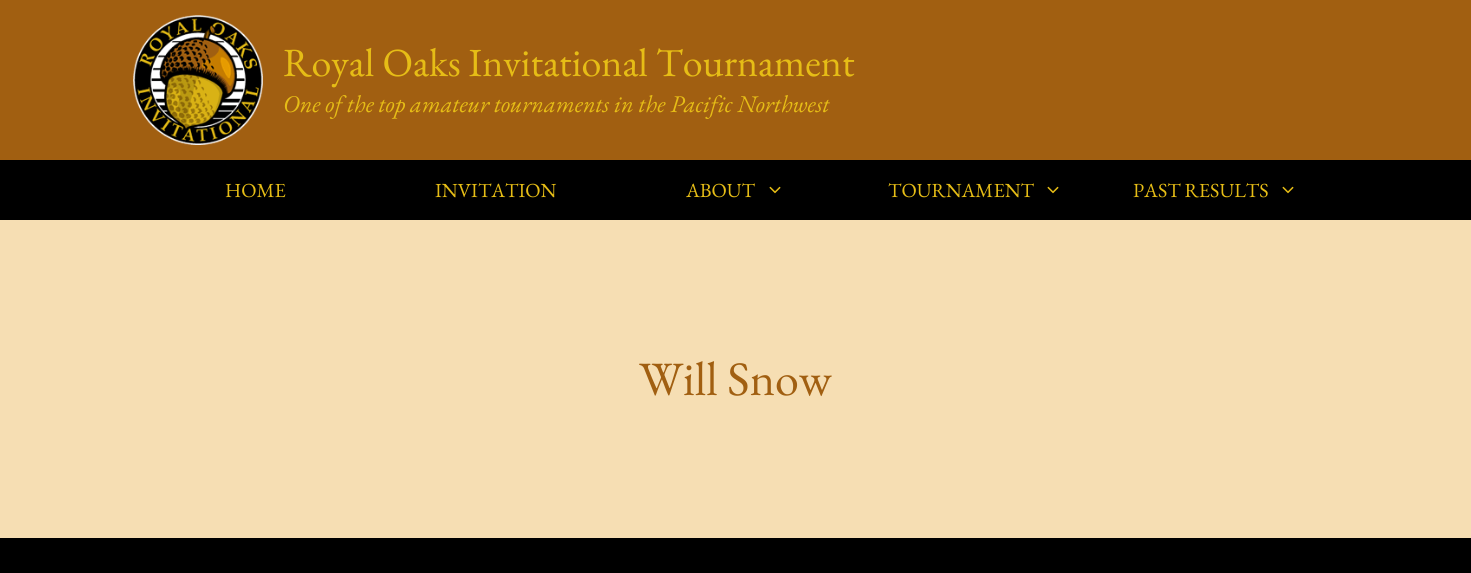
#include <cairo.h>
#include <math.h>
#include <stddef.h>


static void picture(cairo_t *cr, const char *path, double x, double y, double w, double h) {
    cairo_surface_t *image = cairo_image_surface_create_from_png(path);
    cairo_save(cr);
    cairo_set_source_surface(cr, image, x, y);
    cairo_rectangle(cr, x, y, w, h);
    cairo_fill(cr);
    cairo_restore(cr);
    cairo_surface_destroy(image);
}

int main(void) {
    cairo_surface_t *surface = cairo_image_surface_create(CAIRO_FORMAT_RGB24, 1471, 573);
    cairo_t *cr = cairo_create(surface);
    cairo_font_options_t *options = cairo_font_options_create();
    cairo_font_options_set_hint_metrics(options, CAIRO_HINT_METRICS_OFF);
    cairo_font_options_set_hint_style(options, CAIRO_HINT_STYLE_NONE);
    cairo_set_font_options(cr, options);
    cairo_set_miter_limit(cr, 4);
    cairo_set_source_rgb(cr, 0.961, 0.871, 0.702);
    cairo_paint(cr);
    cairo_set_source_rgb(cr, 0.631, 0.373, 0.067);
    cairo_rectangle(cr, 0, 0, 1471, 160);
    cairo_fill(cr);
    picture(cr, "img1.png", 133, 15, 130, 130);
    cairo_select_font_face(cr, "EB Garamond", CAIRO_FONT_SLANT_NORMAL, CAIRO_FONT_WEIGHT_NORMAL);
    cairo_set_font_size(cr, 40);
    cairo_set_source_rgb(cr, 0.902, 0.741, 0.086);
    cairo_move_to(cr, 283, 76);
    cairo_show_text(cr, "Royal Oaks Invitational Tournament");
    cairo_select_font_face(cr, "EB Garamond", CAIRO_FONT_SLANT_ITALIC, CAIRO_FONT_WEIGHT_NORMAL);
    cairo_set_font_size(cr, 24);
    cairo_move_to(cr, 283, 112);
    cairo_show_text(cr, "One of the top amateur tournaments in the Pacific Northwest");
    cairo_set_source_rgb(cr, 0, 0, 0);
    cairo_rectangle(cr, 0, 160, 1471, 60);
    cairo_fill(cr);
    cairo_select_font_face(cr, "EB Garamond", CAIRO_FONT_SLANT_NORMAL, CAIRO_FONT_WEIGHT_NORMAL);
    cairo_set_font_size(cr, 20);
    cairo_set_source_rgb(cr, 0.902, 0.741, 0.086);
    cairo_move_to(cr, 225, 197);
    cairo_show_text(cr, "HOME");
    cairo_move_to(cr, 435, 197);
    cairo_show_text(cr, "INVITATION");
    cairo_move_to(cr, 686, 197);
    cairo_show_text(cr, "ABOUT");
    picture(cr, "img2.png", 769, 186, 12, 8);
    cairo_move_to(cr, 888, 197);
    cairo_show_text(cr, "TOURNAMENT");
    picture(cr, "img2.png", 1047, 186, 12, 8);
    cairo_move_to(cr, 1133, 197);
    cairo_show_text(cr, "PAST RESULTS");
    picture(cr, "img2.png", 1282, 186, 12, 8);
    cairo_set_font_size(cr, 48);
    cairo_set_source_rgb(cr, 0.631, 0.373, 0.067);
    cairo_move_to(cr, 639, 395);
    cairo_show_text(cr, "Will Snow");
    cairo_set_source_rgb(cr, 0, 0, 0);
    cairo_rectangle(cr, 0, 538, 1471, 35);
    cairo_fill(cr);
    cairo_surface_write_to_png(surface, "page.png");
    cairo_font_options_destroy(options);
    cairo_destroy(cr);
    cairo_surface_destroy(surface);
    return 0;
}
